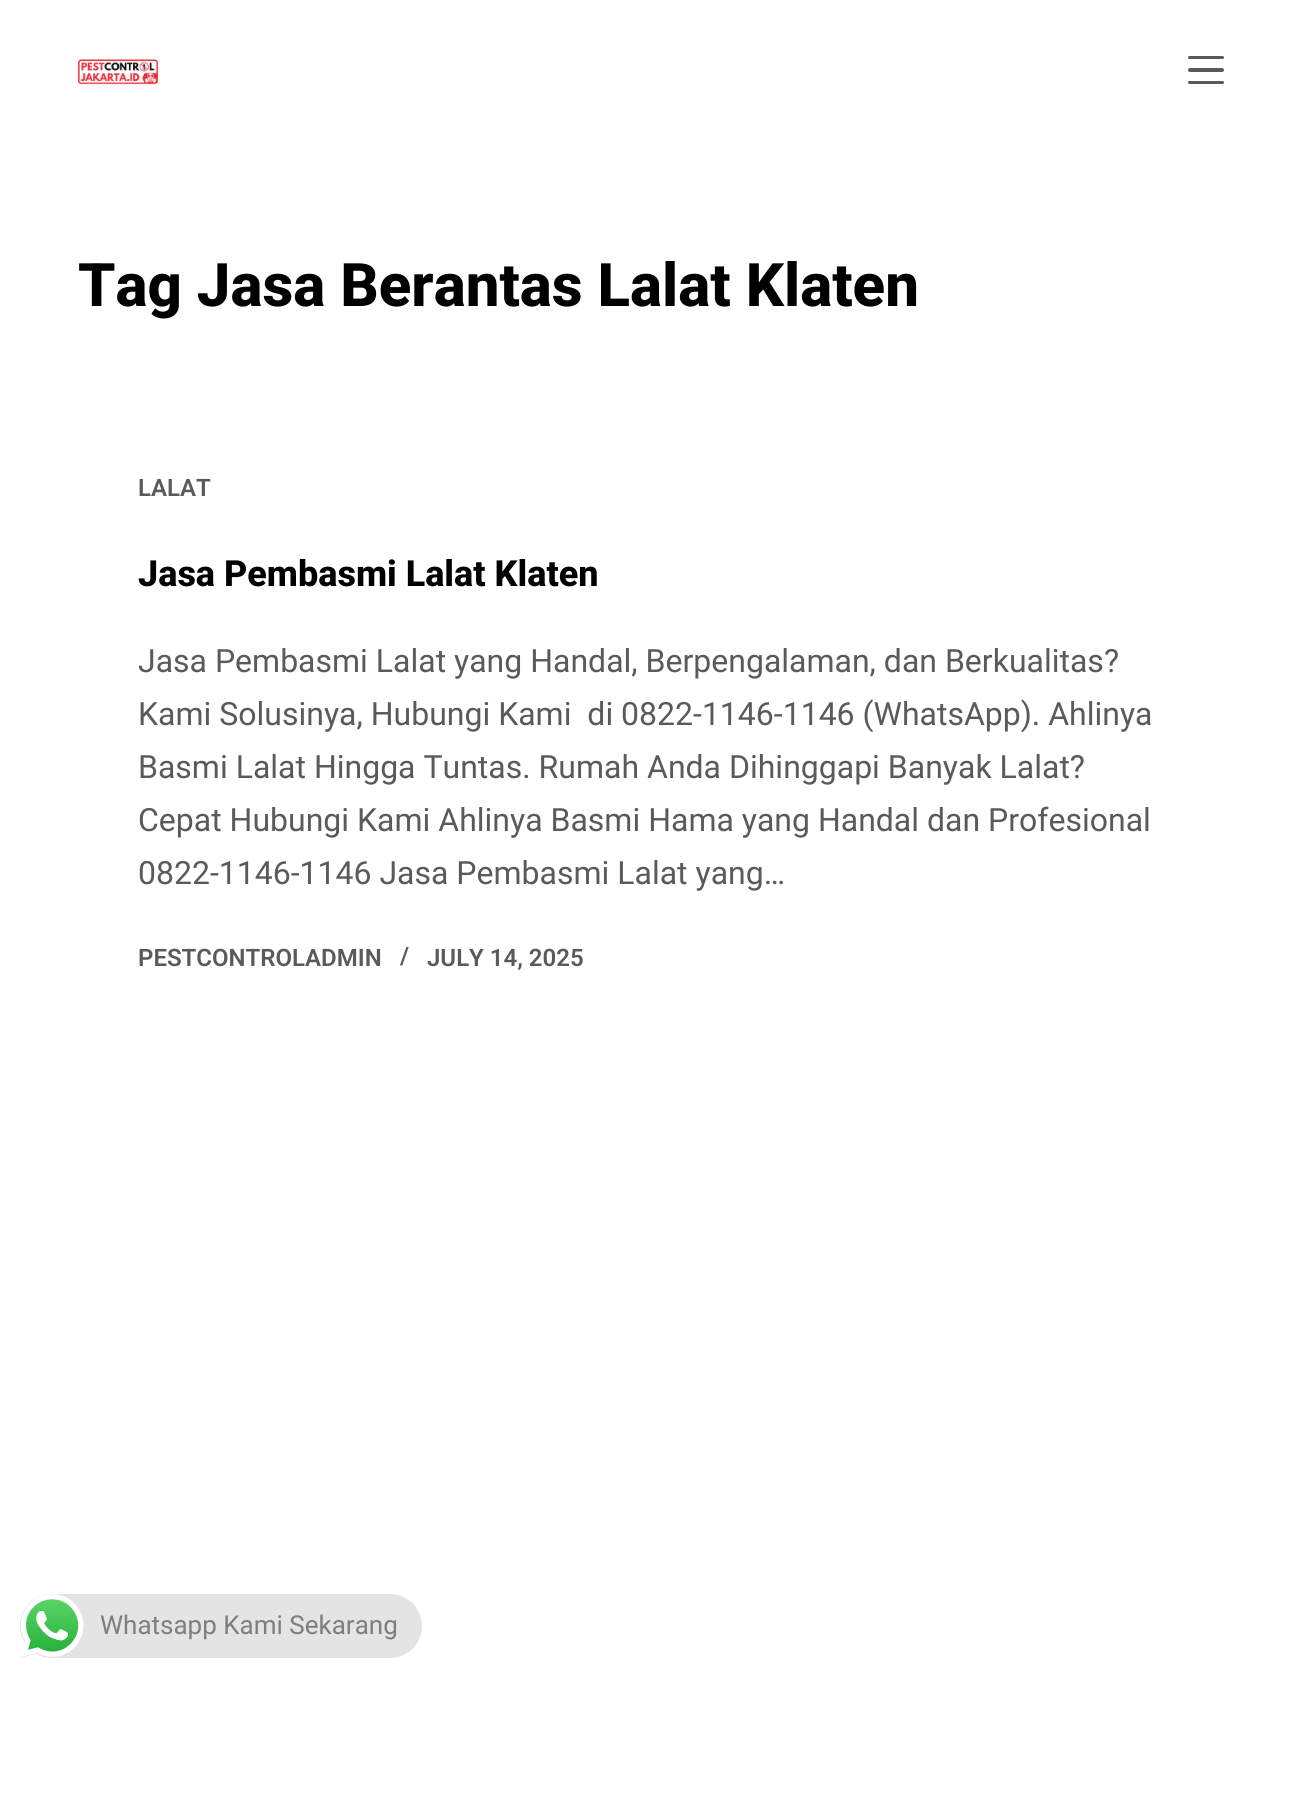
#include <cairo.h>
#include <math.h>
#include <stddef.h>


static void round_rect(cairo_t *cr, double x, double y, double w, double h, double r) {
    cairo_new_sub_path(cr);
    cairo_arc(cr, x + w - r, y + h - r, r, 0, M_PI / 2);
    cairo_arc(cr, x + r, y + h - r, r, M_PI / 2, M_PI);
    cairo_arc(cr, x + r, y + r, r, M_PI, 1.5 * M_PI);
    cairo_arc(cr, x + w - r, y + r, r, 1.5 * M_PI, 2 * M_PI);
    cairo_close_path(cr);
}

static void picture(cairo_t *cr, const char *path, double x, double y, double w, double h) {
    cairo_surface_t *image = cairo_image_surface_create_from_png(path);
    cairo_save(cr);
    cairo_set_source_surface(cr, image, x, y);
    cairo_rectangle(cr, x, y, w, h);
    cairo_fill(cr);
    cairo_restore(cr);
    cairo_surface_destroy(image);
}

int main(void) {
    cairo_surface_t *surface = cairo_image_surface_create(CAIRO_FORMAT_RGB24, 1302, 1801);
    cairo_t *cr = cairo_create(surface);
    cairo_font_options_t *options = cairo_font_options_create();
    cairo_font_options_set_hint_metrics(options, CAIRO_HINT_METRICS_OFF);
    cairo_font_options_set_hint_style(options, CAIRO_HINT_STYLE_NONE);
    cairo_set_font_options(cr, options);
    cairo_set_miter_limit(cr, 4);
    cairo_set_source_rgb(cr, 1, 1, 1);
    cairo_paint(cr);
    picture(cr, "img1.png", 78, 59, 80, 26);
    cairo_set_source_rgb(cr, 0.353, 0.353, 0.353);
    round_rect(cr, 1188, 56, 36, 3, 1.5);
    cairo_fill(cr);
    round_rect(cr, 1188, 68, 36, 4, 2);
    cairo_fill(cr);
    round_rect(cr, 1188, 81, 36, 3, 1.5);
    cairo_fill(cr);
    cairo_select_font_face(cr, "Roboto ExtraBold", CAIRO_FONT_SLANT_NORMAL, CAIRO_FONT_WEIGHT_NORMAL);
    cairo_set_font_size(cr, 60);
    cairo_set_source_rgb(cr, 0, 0, 0);
    cairo_move_to(cr, 78, 306);
    cairo_show_text(cr, "Tag Jasa Berantas Lalat Klaten");
    cairo_select_font_face(cr, "Roboto SemiBold", CAIRO_FONT_SLANT_NORMAL, CAIRO_FONT_WEIGHT_NORMAL);
    cairo_set_font_size(cr, 24);
    cairo_set_source_rgb(cr, 0.353, 0.353, 0.353);
    cairo_move_to(cr, 138, 496);
    cairo_show_text(cr, "LALAT");
    cairo_select_font_face(cr, "Roboto ExtraBold", CAIRO_FONT_SLANT_NORMAL, CAIRO_FONT_WEIGHT_NORMAL);
    cairo_set_font_size(cr, 36);
    cairo_set_source_rgb(cr, 0, 0, 0);
    cairo_move_to(cr, 138, 586);
    cairo_show_text(cr, "Jasa Pembasmi Lalat Klaten");
    cairo_select_font_face(cr, "Roboto", CAIRO_FONT_SLANT_NORMAL, CAIRO_FONT_WEIGHT_NORMAL);
    cairo_set_font_size(cr, 32);
    cairo_set_source_rgb(cr, 0.353, 0.353, 0.353);
    cairo_move_to(cr, 138, 672);
    cairo_show_text(cr, "Jasa Pembasmi Lalat yang Handal, Berpengalaman, dan Berkualitas?");
    cairo_move_to(cr, 138, 725);
    cairo_show_text(cr, "Kami Solusinya, Hubungi Kami  di 0822-1146-1146 (WhatsApp). Ahlinya");
    cairo_move_to(cr, 138, 778);
    cairo_show_text(cr, "Basmi Lalat Hingga Tuntas. Rumah Anda Dihinggapi Banyak Lalat?");
    cairo_move_to(cr, 138, 831);
    cairo_show_text(cr, "Cepat Hubungi Kami Ahlinya Basmi Hama yang Handal dan Profesional");
    cairo_move_to(cr, 138, 884);
    cairo_show_text(cr, "0822-1146-1146 Jasa Pembasmi Lalat yang…");
    cairo_select_font_face(cr, "Roboto SemiBold", CAIRO_FONT_SLANT_NORMAL, CAIRO_FONT_WEIGHT_NORMAL);
    cairo_set_font_size(cr, 24);
    cairo_move_to(cr, 138, 966);
    cairo_show_text(cr, "PESTCONTROLADMIN");
    cairo_move_to(cr, 400, 964);
    cairo_show_text(cr, "/");
    cairo_move_to(cr, 427, 966);
    cairo_show_text(cr, "JULY 14, 2025");
    cairo_set_source_rgb(cr, 0.894, 0.894, 0.894);
    round_rect(cr, 20, 1594, 402, 64, 32);
    cairo_fill(cr);
    picture(cr, "img2.png", 20, 1594, 64, 64);
    cairo_select_font_face(cr, "Roboto", CAIRO_FONT_SLANT_NORMAL, CAIRO_FONT_WEIGHT_NORMAL);
    cairo_set_font_size(cr, 26);
    cairo_set_source_rgb(cr, 0.498, 0.49, 0.49);
    cairo_move_to(cr, 100, 1634);
    cairo_show_text(cr, "Whatsapp Kami Sekarang");
    cairo_surface_write_to_png(surface, "page.png");
    cairo_font_options_destroy(options);
    cairo_destroy(cr);
    cairo_surface_destroy(surface);
    return 0;
}
